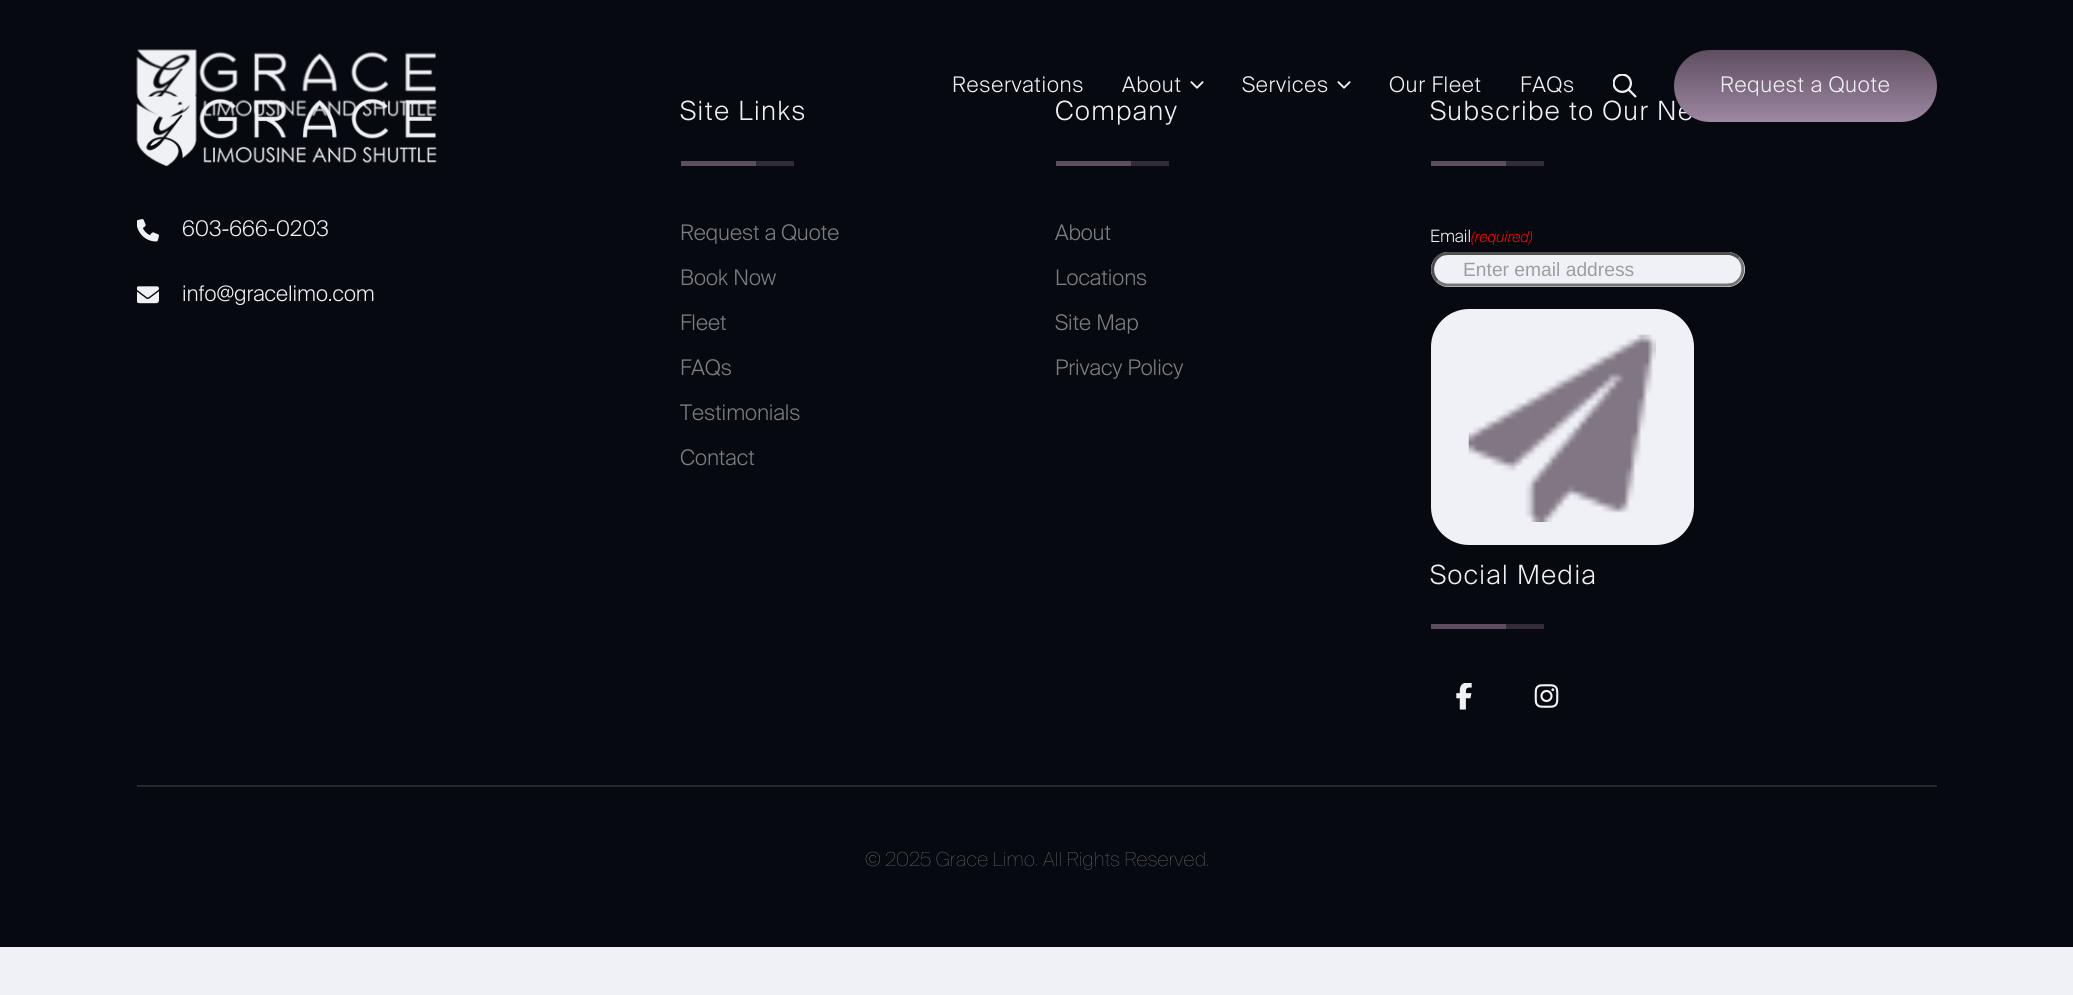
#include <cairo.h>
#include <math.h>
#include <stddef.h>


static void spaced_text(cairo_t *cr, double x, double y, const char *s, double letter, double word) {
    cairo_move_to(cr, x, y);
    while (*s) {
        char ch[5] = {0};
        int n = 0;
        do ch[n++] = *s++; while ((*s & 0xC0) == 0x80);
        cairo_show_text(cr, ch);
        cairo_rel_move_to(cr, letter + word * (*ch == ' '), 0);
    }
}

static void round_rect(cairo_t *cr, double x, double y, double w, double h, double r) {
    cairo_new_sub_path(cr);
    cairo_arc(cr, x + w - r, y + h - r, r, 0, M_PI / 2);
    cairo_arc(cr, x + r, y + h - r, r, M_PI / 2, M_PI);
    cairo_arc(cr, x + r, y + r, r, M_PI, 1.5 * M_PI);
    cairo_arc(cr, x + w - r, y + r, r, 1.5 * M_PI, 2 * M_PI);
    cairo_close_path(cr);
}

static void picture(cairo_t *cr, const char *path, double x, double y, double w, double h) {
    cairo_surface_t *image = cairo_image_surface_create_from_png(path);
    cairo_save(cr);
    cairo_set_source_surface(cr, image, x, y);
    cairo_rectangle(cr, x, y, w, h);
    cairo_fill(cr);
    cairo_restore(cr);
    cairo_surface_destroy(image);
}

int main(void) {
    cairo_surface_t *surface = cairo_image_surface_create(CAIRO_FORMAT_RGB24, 2073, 995);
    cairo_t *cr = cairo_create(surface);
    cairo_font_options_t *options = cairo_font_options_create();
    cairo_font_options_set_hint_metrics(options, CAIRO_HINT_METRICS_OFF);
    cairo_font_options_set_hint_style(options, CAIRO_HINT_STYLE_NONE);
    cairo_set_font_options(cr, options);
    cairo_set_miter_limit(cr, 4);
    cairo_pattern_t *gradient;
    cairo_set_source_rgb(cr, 0.941, 0.945, 0.961);
    cairo_paint(cr);
    cairo_set_source_rgb(cr, 0.024, 0.039, 0.059);
    cairo_rectangle(cr, 0, 0, 2073, 947);
    cairo_fill(cr);
    picture(cr, "img4.png", 136, 96, 301, 71);
    picture(cr, "img1.png", 136, 49, 301, 70);
    cairo_select_font_face(cr, "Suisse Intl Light", CAIRO_FONT_SLANT_NORMAL, CAIRO_FONT_WEIGHT_NORMAL);
    cairo_set_font_size(cr, 21.5);
    cairo_set_source_rgb(cr, 0.941, 0.945, 0.961);
    spaced_text(cr, 952, 92, "Reservations", 0.75, 0);
    spaced_text(cr, 1122, 92, "About", 0.75, 0);
    picture(cr, "img2.png", 1190, 81, 14, 8);
    spaced_text(cr, 1242, 92, "Services", 0.75, 0);
    picture(cr, "img2.png", 1337, 81, 14, 8);
    spaced_text(cr, 1389, 92, "Our Fleet", 0.75, 0);
    spaced_text(cr, 1520, 92, "FAQs", 0.75, 0);
    picture(cr, "img3.png", 1613, 74, 24, 24);
    cairo_set_font_size(cr, 26.5);
    spaced_text(cr, 1430, 120, "Subscribe to Our Ne", 1.5, 0);
    gradient = cairo_pattern_create_linear(1805, -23, 1805, 122);
    cairo_pattern_add_color_stop_rgba(gradient, 0.5, 0.369, 0.302, 0.38, 1);
    cairo_pattern_add_color_stop_rgba(gradient, 1, 0.616, 0.529, 0.631, 1);
    cairo_set_source(cr, gradient);
    cairo_pattern_destroy(gradient);
    round_rect(cr, 1674, 50, 263, 72, 36);
    cairo_fill(cr);
    cairo_set_font_size(cr, 21.5);
    cairo_set_source_rgb(cr, 0.941, 0.945, 0.961);
    spaced_text(cr, 1720, 92, "Request a Quote", 0.75, 0);
    picture(cr, "img5.png", 137, 219, 22, 23);
    cairo_move_to(cr, 182, 236);
    cairo_show_text(cr, "603-666-0203");
    picture(cr, "img6.png", 137, 286, 22, 18);
    cairo_move_to(cr, 182, 301);
    cairo_show_text(cr, "info@gracelimo.com");
    cairo_set_font_size(cr, 26.5);
    spaced_text(cr, 680, 120, "Site Links", 1.5, 0);
    cairo_set_source_rgb(cr, 0.369, 0.302, 0.38);
    cairo_rectangle(cr, 681, 161, 75, 5);
    cairo_fill(cr);
    cairo_set_source_rgb(cr, 0.196, 0.173, 0.22);
    cairo_rectangle(cr, 756, 161, 38, 5);
    cairo_fill(cr);
    cairo_set_font_size(cr, 21.5);
    cairo_set_source_rgb(cr, 0.482, 0.494, 0.51);
    cairo_move_to(cr, 680, 240);
    cairo_show_text(cr, "Request a Quote");
    cairo_move_to(cr, 680, 285);
    cairo_show_text(cr, "Book Now");
    cairo_move_to(cr, 680, 330);
    cairo_show_text(cr, "Fleet");
    cairo_move_to(cr, 680, 375);
    cairo_show_text(cr, "FAQs");
    cairo_move_to(cr, 680, 420);
    cairo_show_text(cr, "Testimonials");
    cairo_move_to(cr, 680, 465);
    cairo_show_text(cr, "Contact");
    cairo_set_font_size(cr, 26.5);
    cairo_set_source_rgb(cr, 0.941, 0.945, 0.961);
    spaced_text(cr, 1055, 120, "Company", 1.5, 0);
    cairo_set_source_rgb(cr, 0.369, 0.302, 0.38);
    cairo_rectangle(cr, 1056, 161, 75, 5);
    cairo_fill(cr);
    cairo_set_source_rgb(cr, 0.196, 0.173, 0.22);
    cairo_rectangle(cr, 1131, 161, 38, 5);
    cairo_fill(cr);
    cairo_set_font_size(cr, 21.5);
    cairo_set_source_rgb(cr, 0.482, 0.494, 0.51);
    cairo_move_to(cr, 1055, 240);
    cairo_show_text(cr, "About");
    cairo_move_to(cr, 1055, 285);
    cairo_show_text(cr, "Locations");
    cairo_move_to(cr, 1055, 330);
    cairo_show_text(cr, "Site Map");
    cairo_move_to(cr, 1055, 375);
    cairo_show_text(cr, "Privacy Policy");
    cairo_set_source_rgb(cr, 0.369, 0.302, 0.38);
    cairo_rectangle(cr, 1431, 161, 75, 5);
    cairo_fill(cr);
    cairo_set_source_rgb(cr, 0.196, 0.173, 0.22);
    cairo_rectangle(cr, 1506, 161, 38, 5);
    cairo_fill(cr);
    cairo_set_font_size(cr, 17);
    cairo_set_source_rgb(cr, 0.941, 0.945, 0.961);
    cairo_move_to(cr, 1430, 242);
    cairo_show_text(cr, "Email");
    cairo_select_font_face(cr, "Suisse Intl Light", CAIRO_FONT_SLANT_ITALIC, CAIRO_FONT_WEIGHT_NORMAL);
    cairo_set_font_size(cr, 15);
    cairo_set_source_rgb(cr, 1, 0, 0);
    cairo_move_to(cr, 1471, 242);
    cairo_show_text(cr, "(required)");
    cairo_set_source_rgb(cr, 0.941, 0.945, 0.961);
    round_rect(cr, 1431, 252, 314, 35, 17.5);
    cairo_fill(cr);
    cairo_new_path(cr);
    cairo_move_to(cr, 1738.5, 258);
    cairo_curve_to(cr, 1746.5, 266.5, 1743, 281, 1732, 284.5);
    cairo_line_to(cr, 1727, 285);
    cairo_line_to(cr, 1446.5, 285);
    cairo_curve_to(cr, 1443, 284.5, 1439.5, 283, 1437, 280.5);
    cairo_set_source_rgb(cr, 0.463, 0.463, 0.463);
    cairo_set_line_width(cr, 3);
    cairo_stroke(cr);
    cairo_new_path(cr);
    cairo_move_to(cr, 1437, 280.5);
    cairo_curve_to(cr, 1429, 272, 1432.5, 257.5, 1443.5, 254);
    cairo_line_to(cr, 1448, 253.5);
    cairo_line_to(cr, 1729, 253.5);
    cairo_curve_to(cr, 1732.5, 254, 1736, 255.5, 1738.5, 258);
    cairo_set_source_rgb(cr, 0.31, 0.31, 0.31);
    cairo_stroke(cr);
    cairo_select_font_face(cr, "Liberation Sans", CAIRO_FONT_SLANT_NORMAL, CAIRO_FONT_WEIGHT_NORMAL);
    cairo_set_font_size(cr, 19.25);
    cairo_set_source_rgb(cr, 0.616, 0.62, 0.624);
    cairo_move_to(cr, 1463, 276);
    cairo_show_text(cr, "Enter email address");
    cairo_set_source_rgb(cr, 0.941, 0.945, 0.961);
    round_rect(cr, 1431, 309, 263, 236, 38);
    cairo_fill(cr);
    picture(cr, "img7.png", 1468, 334, 188, 188);
    cairo_select_font_face(cr, "Suisse Intl Light", CAIRO_FONT_SLANT_NORMAL, CAIRO_FONT_WEIGHT_NORMAL);
    cairo_set_font_size(cr, 26.5);
    spaced_text(cr, 1430, 584, "Social Media", 1.5, 0);
    cairo_set_source_rgb(cr, 0.369, 0.302, 0.38);
    cairo_rectangle(cr, 1431, 624, 75, 5);
    cairo_fill(cr);
    cairo_set_source_rgb(cr, 0.196, 0.173, 0.22);
    cairo_rectangle(cr, 1506, 624, 38, 5);
    cairo_fill(cr);
    picture(cr, "img8.png", 1456, 683, 16, 27);
    picture(cr, "img9.png", 1534, 684, 25, 24);
    cairo_set_source_rgb(cr, 0.145, 0.161, 0.176);
    cairo_rectangle(cr, 137, 785, 1800, 2);
    cairo_fill(cr);
    cairo_select_font_face(cr, "Suisse Intl ExtraLight", CAIRO_FONT_SLANT_NORMAL, CAIRO_FONT_WEIGHT_NORMAL);
    cairo_set_font_size(cr, 19.25);
    cairo_set_source_rgb(cr, 0.482, 0.494, 0.51);
    cairo_move_to(cr, 865, 866);
    cairo_show_text(cr, "© 2025 Grace Limo. All Rights Reserved.");
    cairo_surface_write_to_png(surface, "page.png");
    cairo_font_options_destroy(options);
    cairo_destroy(cr);
    cairo_surface_destroy(surface);
    return 0;
}
